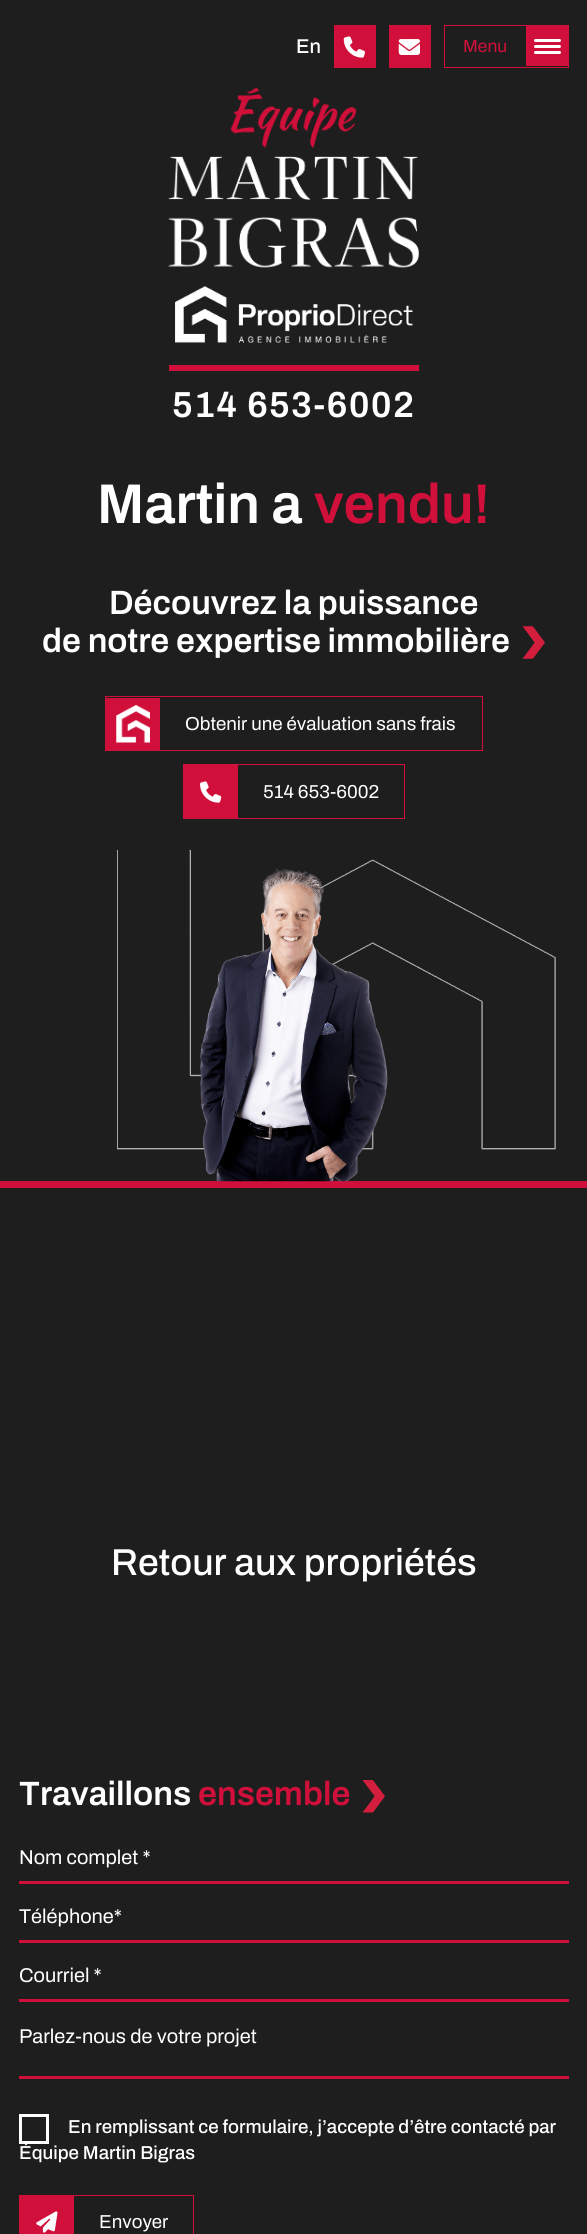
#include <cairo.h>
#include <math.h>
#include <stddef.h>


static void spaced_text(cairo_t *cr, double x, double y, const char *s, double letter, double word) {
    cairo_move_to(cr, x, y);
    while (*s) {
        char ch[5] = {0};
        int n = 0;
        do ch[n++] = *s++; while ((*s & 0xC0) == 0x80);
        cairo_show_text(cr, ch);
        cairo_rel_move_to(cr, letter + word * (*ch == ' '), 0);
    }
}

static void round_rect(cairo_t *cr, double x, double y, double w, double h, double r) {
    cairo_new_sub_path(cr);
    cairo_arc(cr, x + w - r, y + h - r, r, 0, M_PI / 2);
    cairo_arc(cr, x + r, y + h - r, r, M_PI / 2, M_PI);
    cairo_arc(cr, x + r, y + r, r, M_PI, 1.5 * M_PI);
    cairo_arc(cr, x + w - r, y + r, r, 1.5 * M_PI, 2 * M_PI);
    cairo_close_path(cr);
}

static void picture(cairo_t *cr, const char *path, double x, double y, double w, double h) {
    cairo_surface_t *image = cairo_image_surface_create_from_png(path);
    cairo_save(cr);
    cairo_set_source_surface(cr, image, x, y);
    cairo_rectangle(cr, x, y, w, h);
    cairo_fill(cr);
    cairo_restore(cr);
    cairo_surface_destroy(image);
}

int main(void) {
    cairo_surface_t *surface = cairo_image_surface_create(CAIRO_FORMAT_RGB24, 587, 2234);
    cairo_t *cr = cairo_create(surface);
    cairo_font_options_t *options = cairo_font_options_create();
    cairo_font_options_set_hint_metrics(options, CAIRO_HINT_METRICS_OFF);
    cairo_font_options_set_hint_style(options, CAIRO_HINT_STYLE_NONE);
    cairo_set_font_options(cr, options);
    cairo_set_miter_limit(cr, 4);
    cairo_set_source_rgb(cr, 0.118, 0.118, 0.118);
    cairo_paint(cr);
    cairo_select_font_face(cr, "Archivo Medium", CAIRO_FONT_SLANT_NORMAL, CAIRO_FONT_WEIGHT_NORMAL);
    cairo_set_font_size(cr, 20);
    cairo_set_source_rgb(cr, 1, 1, 1);
    cairo_move_to(cr, 296, 53);
    cairo_show_text(cr, "En");
    cairo_set_source_rgb(cr, 0.816, 0.063, 0.227);
    cairo_rectangle(cr, 334, 25, 42, 43);
    cairo_fill(cr);
    picture(cr, "img1.png", 343, 36, 22, 22);
    cairo_rectangle(cr, 389, 25, 42, 43);
    cairo_fill(cr);
    picture(cr, "img2.png", 398, 39, 22, 16);
    cairo_rectangle(cr, 444.5, 25.5, 124, 42);
    cairo_set_line_width(cr, 1);
    cairo_stroke(cr);
    cairo_select_font_face(cr, "Archivo", CAIRO_FONT_SLANT_NORMAL, CAIRO_FONT_WEIGHT_NORMAL);
    cairo_set_font_size(cr, 17.5);
    cairo_move_to(cr, 463, 52);
    cairo_show_text(cr, "Menu");
    cairo_rectangle(cr, 526, 26, 42, 40);
    cairo_fill(cr);
    cairo_set_source_rgb(cr, 1, 1, 1);
    round_rect(cr, 534, 39, 27, 3, 1.5);
    cairo_fill(cr);
    round_rect(cr, 534, 45, 27, 3, 1.5);
    cairo_fill(cr);
    round_rect(cr, 534, 51, 27, 3, 1.5);
    cairo_fill(cr);
    picture(cr, "img3.png", 168, 87, 251, 181);
    picture(cr, "img4.png", 175, 286, 238, 57);
    cairo_set_source_rgb(cr, 0.816, 0.063, 0.227);
    cairo_rectangle(cr, 169, 365, 250, 6);
    cairo_fill(cr);
    cairo_select_font_face(cr, "Archivo SemiBold", CAIRO_FONT_SLANT_NORMAL, CAIRO_FONT_WEIGHT_NORMAL);
    cairo_set_font_size(cr, 36.25);
    cairo_set_source_rgb(cr, 1, 1, 1);
    spaced_text(cr, 172, 417, "514 653-6002", 1.25, 0);
    cairo_set_font_size(cr, 56);
    cairo_move_to(cr, 97, 523);
    cairo_show_text(cr, "Martin a");
    cairo_set_source_rgb(cr, 0.816, 0.063, 0.227);
    cairo_move_to(cr, 314, 523);
    cairo_show_text(cr, "vendu!");
    cairo_set_font_size(cr, 33.75);
    cairo_set_source_rgb(cr, 1, 1, 1);
    cairo_move_to(cr, 109, 614);
    cairo_show_text(cr, "Découvrez la puissance");
    cairo_move_to(cr, 42, 652);
    cairo_show_text(cr, "de notre expertise immobilière");
    picture(cr, "img5.png", 522, 626, 23, 33);
    cairo_rectangle(cr, 105.5, 696.5, 377, 54);
    cairo_set_source_rgb(cr, 0.816, 0.063, 0.227);
    cairo_stroke(cr);
    cairo_rectangle(cr, 106, 698, 54, 52);
    cairo_fill(cr);
    picture(cr, "img6.png", 116, 705, 34, 38);
    cairo_select_font_face(cr, "Archivo", CAIRO_FONT_SLANT_NORMAL, CAIRO_FONT_WEIGHT_NORMAL);
    cairo_set_font_size(cr, 18.75);
    cairo_set_source_rgb(cr, 1, 1, 1);
    cairo_move_to(cr, 185, 730);
    cairo_show_text(cr, "Obtenir une évaluation sans frais");
    cairo_rectangle(cr, 183.5, 764.5, 221, 54);
    cairo_set_source_rgb(cr, 0.816, 0.063, 0.227);
    cairo_stroke(cr);
    cairo_rectangle(cr, 184, 765, 54, 53);
    cairo_fill(cr);
    picture(cr, "img7.png", 200, 781, 22, 22);
    cairo_set_source_rgb(cr, 1, 1, 1);
    cairo_move_to(cr, 263, 798);
    cairo_show_text(cr, "514 653-6002");
    picture(cr, "img8.png", 117, 850, 439, 300);
    cairo_set_source_rgb(cr, 0.816, 0.063, 0.227);
    cairo_rectangle(cr, 0, 1181, 587, 7);
    cairo_fill(cr);
    picture(cr, "img9.png", 200, 869, 188, 313);
    cairo_select_font_face(cr, "Archivo Medium", CAIRO_FONT_SLANT_NORMAL, CAIRO_FONT_WEIGHT_NORMAL);
    cairo_set_font_size(cr, 37.5);
    cairo_set_source_rgb(cr, 1, 1, 1);
    cairo_move_to(cr, 111, 1575);
    cairo_show_text(cr, "Retour aux propriétés");
    cairo_select_font_face(cr, "Archivo SemiBold", CAIRO_FONT_SLANT_NORMAL, CAIRO_FONT_WEIGHT_NORMAL);
    cairo_set_font_size(cr, 33.75);
    cairo_move_to(cr, 19, 1805);
    cairo_show_text(cr, "Travaillons");
    cairo_set_source_rgb(cr, 0.816, 0.063, 0.227);
    cairo_move_to(cr, 198, 1805);
    cairo_show_text(cr, "ensemble");
    picture(cr, "img10.png", 362, 1780, 23, 33);
    cairo_rectangle(cr, 19, 1881, 550, 3);
    cairo_fill(cr);
    cairo_select_font_face(cr, "Archivo", CAIRO_FONT_SLANT_NORMAL, CAIRO_FONT_WEIGHT_NORMAL);
    cairo_set_font_size(cr, 20);
    cairo_set_source_rgb(cr, 1, 1, 1);
    cairo_move_to(cr, 19, 1864);
    cairo_show_text(cr, "Nom complet *");
    cairo_set_source_rgb(cr, 0.816, 0.063, 0.227);
    cairo_rectangle(cr, 19, 1940, 550, 3);
    cairo_fill(cr);
    cairo_set_source_rgb(cr, 1, 1, 1);
    cairo_move_to(cr, 19, 1923);
    cairo_show_text(cr, "Téléphone*");
    cairo_set_source_rgb(cr, 0.816, 0.063, 0.227);
    cairo_rectangle(cr, 19, 1999, 550, 3);
    cairo_fill(cr);
    cairo_set_source_rgb(cr, 1, 1, 1);
    cairo_move_to(cr, 19, 1982);
    cairo_show_text(cr, "Courriel *");
    cairo_set_source_rgb(cr, 0.816, 0.063, 0.227);
    cairo_rectangle(cr, 19, 2076, 550, 3);
    cairo_fill(cr);
    cairo_set_source_rgb(cr, 1, 1, 1);
    cairo_move_to(cr, 19, 2043);
    cairo_show_text(cr, "Parlez-nous de votre projet");
    cairo_rectangle(cr, 20.5, 2115.5, 27, 27);
    cairo_set_line_width(cr, 3);
    cairo_stroke(cr);
    cairo_select_font_face(cr, "Archivo Medium", CAIRO_FONT_SLANT_NORMAL, CAIRO_FONT_WEIGHT_NORMAL);
    cairo_set_font_size(cr, 18.75);
    cairo_move_to(cr, 68, 2133);
    cairo_show_text(cr, "En remplissant ce formulaire, j’accepte d’être contacté par");
    cairo_move_to(cr, 19, 2159);
    cairo_show_text(cr, "Équipe Martin Bigras");
    cairo_rectangle(cr, 19.5, 2195.5, 174, 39);
    cairo_set_source_rgb(cr, 0.816, 0.063, 0.227);
    cairo_set_line_width(cr, 1);
    cairo_stroke(cr);
    cairo_rectangle(cr, 20, 2196, 54, 38);
    cairo_fill(cr);
    picture(cr, "img11.png", 36, 2211, 22, 22);
    cairo_select_font_face(cr, "Archivo", CAIRO_FONT_SLANT_NORMAL, CAIRO_FONT_WEIGHT_NORMAL);
    cairo_set_source_rgb(cr, 1, 1, 1);
    cairo_move_to(cr, 99, 2228);
    cairo_show_text(cr, "Envoyer");
    cairo_surface_write_to_png(surface, "page.png");
    cairo_font_options_destroy(options);
    cairo_destroy(cr);
    cairo_surface_destroy(surface);
    return 0;
}
